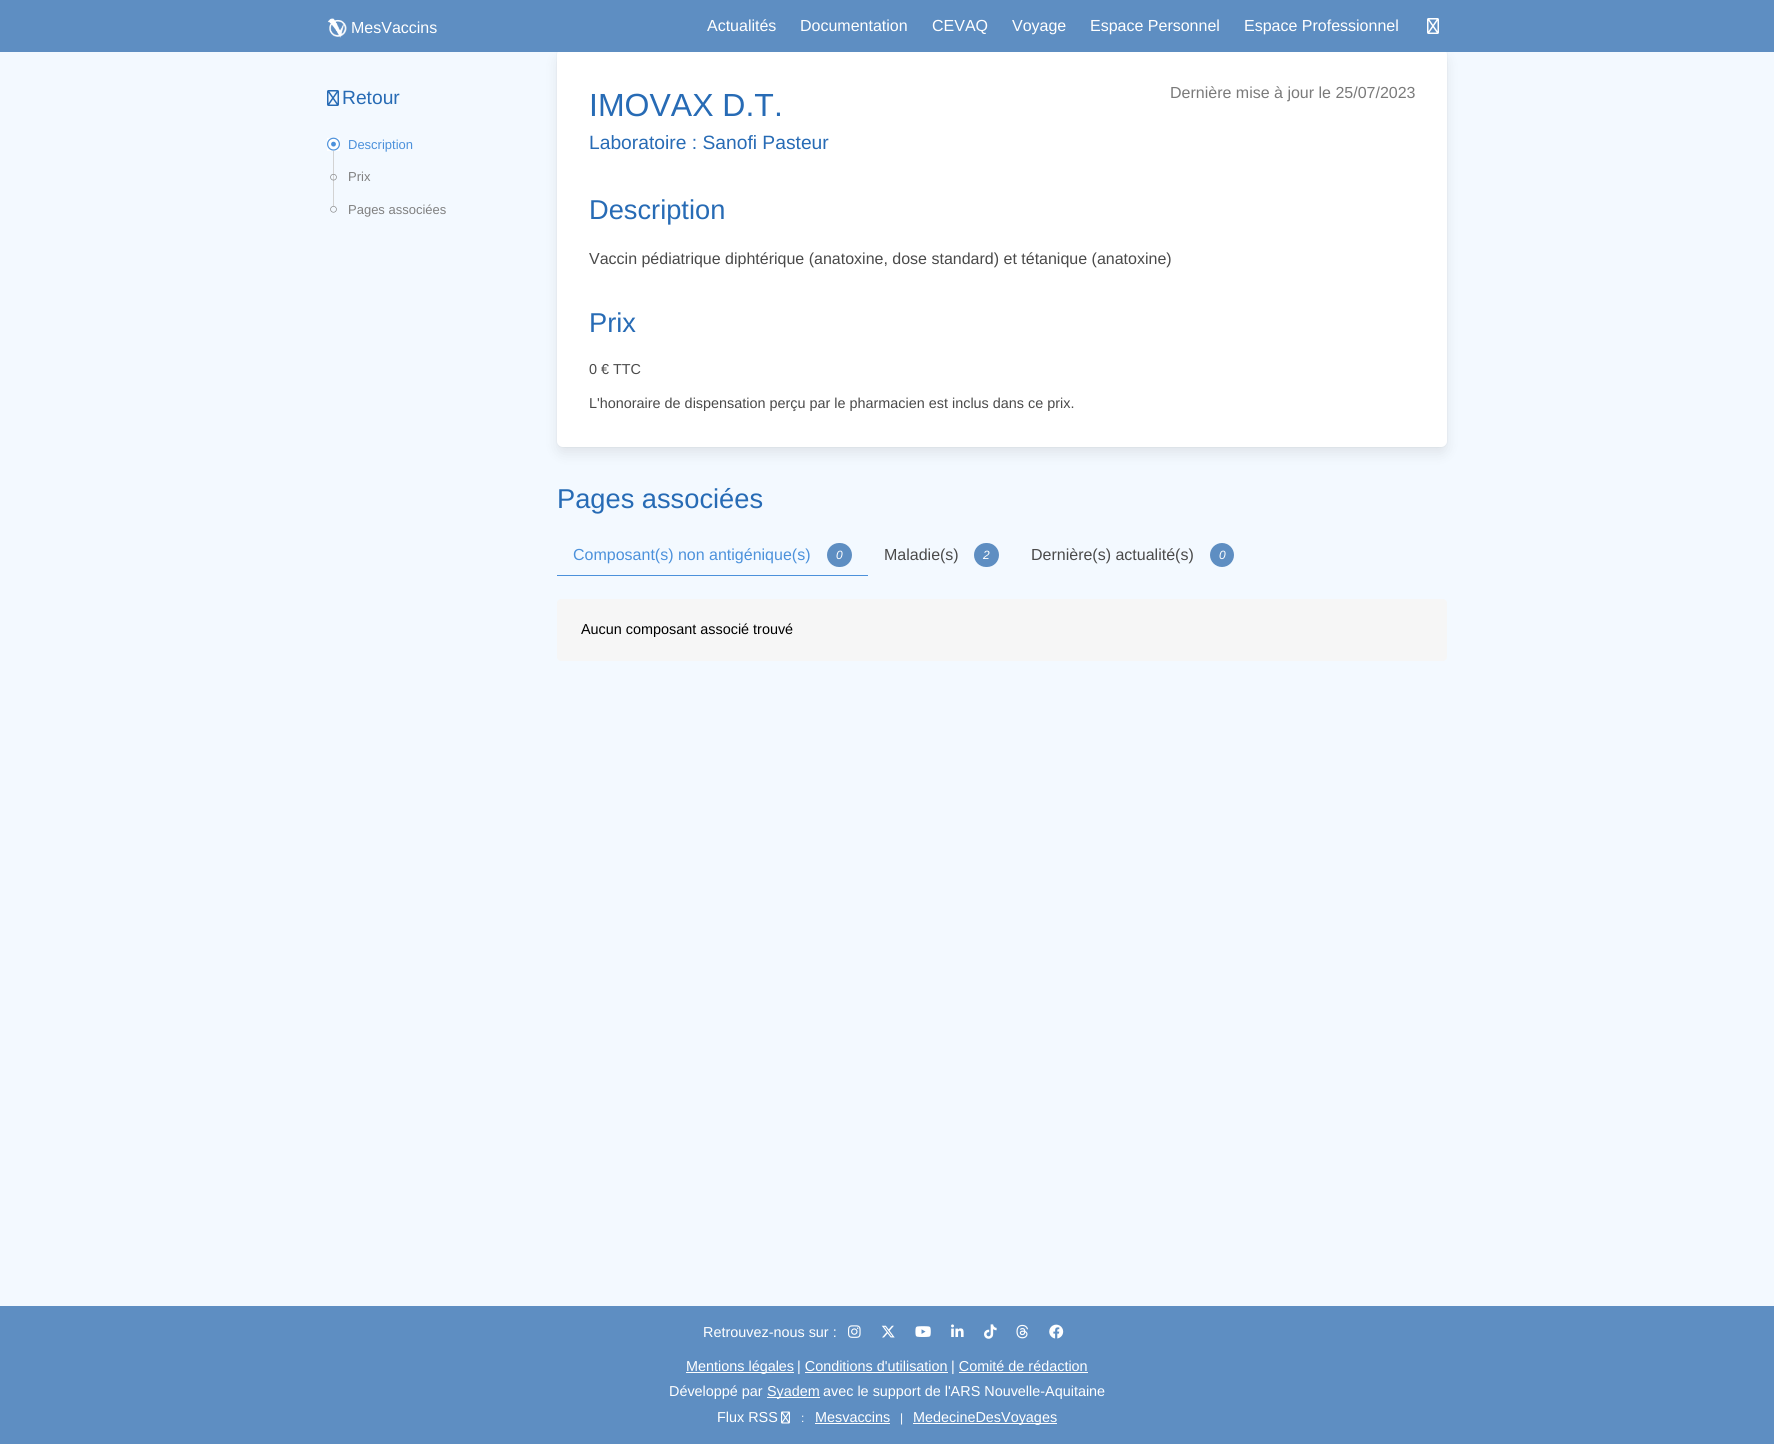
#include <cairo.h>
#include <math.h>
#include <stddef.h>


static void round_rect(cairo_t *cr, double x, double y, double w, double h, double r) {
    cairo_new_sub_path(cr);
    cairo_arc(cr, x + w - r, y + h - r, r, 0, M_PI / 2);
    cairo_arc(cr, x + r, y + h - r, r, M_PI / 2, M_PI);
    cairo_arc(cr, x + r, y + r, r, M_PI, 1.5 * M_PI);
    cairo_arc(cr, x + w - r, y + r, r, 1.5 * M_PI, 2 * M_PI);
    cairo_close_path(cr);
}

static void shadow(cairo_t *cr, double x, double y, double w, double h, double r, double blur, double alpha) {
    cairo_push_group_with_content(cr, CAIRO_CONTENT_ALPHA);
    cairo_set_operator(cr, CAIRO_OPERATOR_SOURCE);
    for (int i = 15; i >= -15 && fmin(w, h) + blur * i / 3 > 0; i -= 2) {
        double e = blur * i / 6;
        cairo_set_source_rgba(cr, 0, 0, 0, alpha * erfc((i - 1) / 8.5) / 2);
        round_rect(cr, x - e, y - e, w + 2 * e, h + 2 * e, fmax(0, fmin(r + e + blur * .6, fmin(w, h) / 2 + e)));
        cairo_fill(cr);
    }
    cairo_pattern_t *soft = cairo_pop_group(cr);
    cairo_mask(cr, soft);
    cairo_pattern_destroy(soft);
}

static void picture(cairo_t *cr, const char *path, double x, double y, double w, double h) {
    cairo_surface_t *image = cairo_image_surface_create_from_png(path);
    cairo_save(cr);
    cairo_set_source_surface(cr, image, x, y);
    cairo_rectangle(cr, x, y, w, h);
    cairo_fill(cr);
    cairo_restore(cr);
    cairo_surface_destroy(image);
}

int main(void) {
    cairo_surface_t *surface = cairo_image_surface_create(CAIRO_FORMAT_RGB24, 1774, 1444);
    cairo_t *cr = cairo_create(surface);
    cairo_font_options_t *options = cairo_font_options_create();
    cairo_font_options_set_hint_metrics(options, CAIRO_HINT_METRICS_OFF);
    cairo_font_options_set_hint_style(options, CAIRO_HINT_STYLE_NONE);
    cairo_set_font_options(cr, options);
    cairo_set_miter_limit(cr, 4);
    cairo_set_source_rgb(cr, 0.953, 0.976, 1);
    cairo_paint(cr);
    round_rect(cr, 556.5, 48.5, 891, 399, 6.5);
    cairo_set_source_rgb(cr, 0.933, 0.957, 0.98);
    cairo_set_line_width(cr, 1);
    cairo_stroke(cr);
    cairo_set_source_rgb(cr, 0.039, 0.039, 0.039);
    shadow(cr, 559, 58, 886, 394, 4, 7, 0.1);
    cairo_set_source_rgb(cr, 1, 1, 1);
    round_rect(cr, 557, 49, 890, 398, 6);
    cairo_fill(cr);
    cairo_set_source_rgb(cr, 0.369, 0.557, 0.761);
    cairo_rectangle(cr, 0, 0, 1774, 52);
    cairo_fill(cr);
    picture(cr, "img1.png", 327, 18, 20, 20);
    cairo_select_font_face(cr, "Liberation Sans", CAIRO_FONT_SLANT_NORMAL, CAIRO_FONT_WEIGHT_NORMAL);
    cairo_set_font_size(cr, 16);
    cairo_set_source_rgb(cr, 1, 1, 1);
    cairo_move_to(cr, 351, 33);
    cairo_show_text(cr, "MesVaccins");
    cairo_move_to(cr, 707, 31);
    cairo_show_text(cr, "Actualités");
    cairo_move_to(cr, 800, 31);
    cairo_show_text(cr, "Documentation");
    cairo_move_to(cr, 932, 31);
    cairo_show_text(cr, "CEVAQ");
    cairo_move_to(cr, 1012, 31);
    cairo_show_text(cr, "Voyage");
    cairo_move_to(cr, 1090, 31);
    cairo_show_text(cr, "Espace Personnel");
    cairo_move_to(cr, 1244, 31);
    cairo_show_text(cr, "Espace Professionnel");
    picture(cr, "img2.png", 1427, 18, 12, 16);
    picture(cr, "img3.png", 327, 90, 12, 16);
    cairo_set_font_size(cr, 19.25);
    cairo_set_source_rgb(cr, 0.153, 0.42, 0.71);
    cairo_move_to(cr, 342, 104);
    cairo_show_text(cr, "Retour");
    cairo_set_source_rgb(cr, 0.827, 0.827, 0.827);
    cairo_rectangle(cr, 333, 148, 1, 58);
    cairo_fill(cr);
    cairo_set_source_rgb(cr, 1, 1, 1);
    cairo_rectangle(cr, 327, 138, 13, 13);
    cairo_fill(cr);
    picture(cr, "img4.png", 327, 137, 13, 14);
    cairo_set_font_size(cr, 13);
    cairo_set_source_rgb(cr, 0.298, 0.569, 0.859);
    cairo_move_to(cr, 348, 149);
    cairo_show_text(cr, "Description");
    picture(cr, "img5.png", 330, 174, 7, 7);
    cairo_set_source_rgb(cr, 0.502, 0.502, 0.502);
    cairo_move_to(cr, 348, 181);
    cairo_show_text(cr, "Prix");
    picture(cr, "img6.png", 330, 206, 7, 7);
    cairo_move_to(cr, 348, 214);
    cairo_show_text(cr, "Pages associées");
    cairo_set_font_size(cr, 32);
    cairo_set_source_rgb(cr, 0.153, 0.42, 0.71);
    cairo_move_to(cr, 589, 116);
    cairo_show_text(cr, "IMOVAX D.T.");
    cairo_set_font_size(cr, 16);
    cairo_set_source_rgb(cr, 0.478, 0.478, 0.478);
    cairo_move_to(cr, 1170, 98);
    cairo_show_text(cr, "Dernière mise à jour le 25/07/2023");
    cairo_set_font_size(cr, 19.25);
    cairo_set_source_rgb(cr, 0.153, 0.42, 0.71);
    cairo_move_to(cr, 589, 149);
    cairo_show_text(cr, "Laboratoire : Sanofi Pasteur");
    cairo_set_font_size(cr, 27.25);
    cairo_move_to(cr, 589, 219);
    cairo_show_text(cr, "Description");
    cairo_set_font_size(cr, 16);
    cairo_set_source_rgb(cr, 0.29, 0.29, 0.29);
    cairo_move_to(cr, 589, 264);
    cairo_show_text(cr, "Vaccin pédiatrique diphtérique (anatoxine, dose standard) et tétanique (anatoxine)");
    cairo_set_font_size(cr, 27.25);
    cairo_set_source_rgb(cr, 0.153, 0.42, 0.71);
    cairo_move_to(cr, 589, 332);
    cairo_show_text(cr, "Prix");
    cairo_set_font_size(cr, 14.4);
    cairo_set_source_rgb(cr, 0.29, 0.29, 0.29);
    cairo_move_to(cr, 589, 374);
    cairo_show_text(cr, "0 € TTC");
    cairo_move_to(cr, 589, 408);
    cairo_show_text(cr, "L'honoraire de dispensation perçu par le pharmacien est inclus dans ce prix.");
    cairo_set_font_size(cr, 27.25);
    cairo_set_source_rgb(cr, 0.153, 0.42, 0.71);
    cairo_move_to(cr, 557, 508);
    cairo_show_text(cr, "Pages associées");
    cairo_set_source_rgb(cr, 0.298, 0.569, 0.859);
    cairo_rectangle(cr, 557, 575, 311, 1);
    cairo_fill(cr);
    cairo_set_font_size(cr, 16);
    cairo_move_to(cr, 573, 560);
    cairo_show_text(cr, "Composant(s) non antigénique(s)");
    cairo_set_source_rgb(cr, 0.369, 0.557, 0.761);
    round_rect(cr, 827, 543, 25, 24, 12);
    cairo_fill(cr);
    cairo_select_font_face(cr, "Liberation Sans", CAIRO_FONT_SLANT_ITALIC, CAIRO_FONT_WEIGHT_NORMAL);
    cairo_set_font_size(cr, 12);
    cairo_set_source_rgb(cr, 1, 1, 1);
    cairo_move_to(cr, 836, 559);
    cairo_show_text(cr, "0");
    cairo_select_font_face(cr, "Liberation Sans", CAIRO_FONT_SLANT_NORMAL, CAIRO_FONT_WEIGHT_NORMAL);
    cairo_set_font_size(cr, 16);
    cairo_set_source_rgb(cr, 0.29, 0.29, 0.29);
    cairo_move_to(cr, 884, 560);
    cairo_show_text(cr, "Maladie(s)");
    cairo_set_source_rgb(cr, 0.369, 0.557, 0.761);
    round_rect(cr, 974, 543, 25, 24, 12);
    cairo_fill(cr);
    cairo_select_font_face(cr, "Liberation Sans", CAIRO_FONT_SLANT_ITALIC, CAIRO_FONT_WEIGHT_NORMAL);
    cairo_set_font_size(cr, 12);
    cairo_set_source_rgb(cr, 1, 1, 1);
    cairo_move_to(cr, 983, 559);
    cairo_show_text(cr, "2");
    cairo_select_font_face(cr, "Liberation Sans", CAIRO_FONT_SLANT_NORMAL, CAIRO_FONT_WEIGHT_NORMAL);
    cairo_set_font_size(cr, 16);
    cairo_set_source_rgb(cr, 0.29, 0.29, 0.29);
    cairo_move_to(cr, 1031, 560);
    cairo_show_text(cr, "Dernière(s) actualité(s)");
    cairo_set_source_rgb(cr, 0.369, 0.557, 0.761);
    cairo_new_path(cr);
    cairo_arc(cr, 1222, 555, 12, 0, 2 * M_PI);
    cairo_fill(cr);
    cairo_select_font_face(cr, "Liberation Sans", CAIRO_FONT_SLANT_ITALIC, CAIRO_FONT_WEIGHT_NORMAL);
    cairo_set_font_size(cr, 12);
    cairo_set_source_rgb(cr, 1, 1, 1);
    cairo_move_to(cr, 1219, 559);
    cairo_show_text(cr, "0");
    cairo_set_source_rgb(cr, 0.961, 0.961, 0.961);
    round_rect(cr, 557, 599, 890, 62, 4);
    cairo_fill(cr);
    cairo_select_font_face(cr, "Liberation Sans", CAIRO_FONT_SLANT_NORMAL, CAIRO_FONT_WEIGHT_NORMAL);
    cairo_set_font_size(cr, 14.4);
    cairo_set_source_rgb(cr, 0, 0, 0);
    cairo_move_to(cr, 581, 634);
    cairo_show_text(cr, "Aucun composant associé trouvé");
    cairo_set_source_rgb(cr, 0.369, 0.557, 0.761);
    cairo_rectangle(cr, 0, 1306, 1774, 138);
    cairo_fill(cr);
    cairo_set_source_rgb(cr, 1, 1, 1);
    cairo_move_to(cr, 703, 1337);
    cairo_show_text(cr, "Retrouvez-nous sur :");
    picture(cr, "img7.png", 848, 1325, 13, 13);
    picture(cr, "img8.png", 881, 1325, 14, 13);
    picture(cr, "img9.png", 915, 1326, 16, 11);
    picture(cr, "img10.png", 951, 1324, 13, 13);
    picture(cr, "img11.png", 984, 1324, 13, 15);
    picture(cr, "img12.png", 1016, 1324, 12, 15);
    picture(cr, "img13.png", 1049, 1324, 15, 15);
    cairo_rectangle(cr, 686, 1372, 108, 1);
    cairo_fill(cr);
    cairo_move_to(cr, 686, 1371);
    cairo_show_text(cr, "Mentions légales");
    cairo_move_to(cr, 797, 1371);
    cairo_show_text(cr, "| Conditions d'utilisation");
    cairo_move_to(cr, 951, 1371);
    cairo_show_text(cr, "| Comité de rédaction");
    cairo_rectangle(cr, 805, 1372, 143, 1);
    cairo_fill(cr);
    cairo_rectangle(cr, 959, 1372, 129, 1);
    cairo_fill(cr);
    cairo_move_to(cr, 669, 1396);
    cairo_show_text(cr, "Développé par");
    cairo_rectangle(cr, 767, 1397, 53, 1);
    cairo_fill(cr);
    cairo_move_to(cr, 767, 1396);
    cairo_show_text(cr, "Syadem");
    cairo_move_to(cr, 823, 1396);
    cairo_show_text(cr, "avec le support de l'ARS Nouvelle-Aquitaine");
    cairo_move_to(cr, 717, 1422);
    cairo_show_text(cr, "Flux RSS");
    picture(cr, "img14.png", 781, 1411, 9, 13);
    cairo_set_font_size(cr, 12);
    cairo_move_to(cr, 801, 1422);
    cairo_show_text(cr, ":");
    cairo_set_font_size(cr, 14.4);
    cairo_move_to(cr, 815, 1422);
    cairo_show_text(cr, "Mesvaccins");
    cairo_rectangle(cr, 815, 1423, 75, 1);
    cairo_fill(cr);
    cairo_set_font_size(cr, 12);
    cairo_move_to(cr, 900, 1422);
    cairo_show_text(cr, "|");
    cairo_rectangle(cr, 913, 1423, 144, 1);
    cairo_fill(cr);
    cairo_set_font_size(cr, 14.4);
    cairo_move_to(cr, 913, 1422);
    cairo_show_text(cr, "MedecineDesVoyages");
    cairo_surface_write_to_png(surface, "page.png");
    cairo_font_options_destroy(options);
    cairo_destroy(cr);
    cairo_surface_destroy(surface);
    return 0;
}
